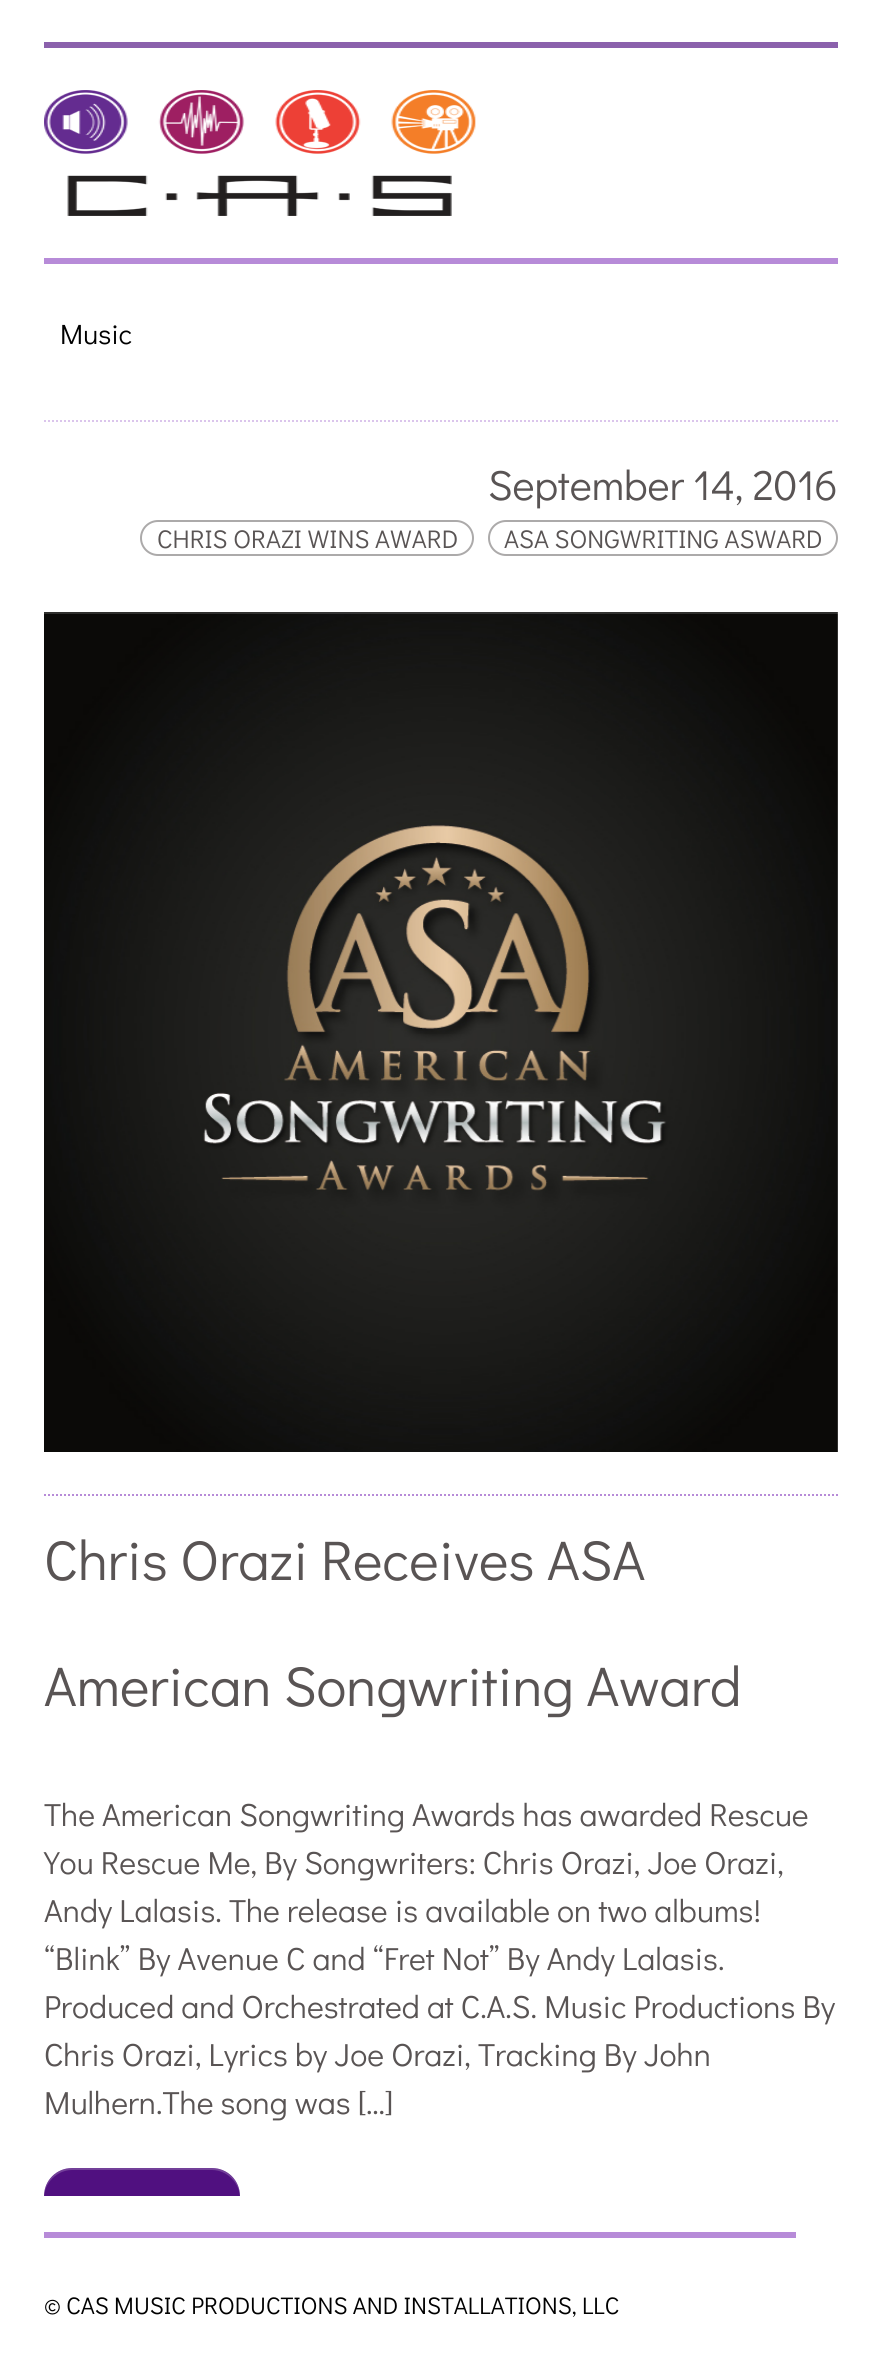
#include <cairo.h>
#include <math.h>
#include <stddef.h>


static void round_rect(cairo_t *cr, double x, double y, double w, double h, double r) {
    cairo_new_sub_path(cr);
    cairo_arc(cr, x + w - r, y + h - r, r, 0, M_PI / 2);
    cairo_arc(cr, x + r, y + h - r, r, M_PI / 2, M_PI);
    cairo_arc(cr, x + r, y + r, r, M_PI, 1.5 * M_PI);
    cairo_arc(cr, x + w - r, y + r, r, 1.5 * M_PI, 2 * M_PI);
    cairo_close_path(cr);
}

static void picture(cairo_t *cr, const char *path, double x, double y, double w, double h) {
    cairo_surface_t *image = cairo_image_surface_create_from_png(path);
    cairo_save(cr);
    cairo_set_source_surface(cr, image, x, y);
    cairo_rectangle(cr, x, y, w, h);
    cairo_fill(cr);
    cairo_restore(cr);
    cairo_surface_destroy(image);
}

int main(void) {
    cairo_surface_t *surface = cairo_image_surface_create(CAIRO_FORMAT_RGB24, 881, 2364);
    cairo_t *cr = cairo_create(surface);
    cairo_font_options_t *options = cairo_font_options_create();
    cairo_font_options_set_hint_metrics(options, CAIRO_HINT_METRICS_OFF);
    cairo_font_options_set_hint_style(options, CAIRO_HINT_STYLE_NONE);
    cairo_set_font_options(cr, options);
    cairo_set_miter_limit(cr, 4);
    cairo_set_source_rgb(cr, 1, 1, 1);
    cairo_paint(cr);
    cairo_set_source_rgb(cr, 0.545, 0.38, 0.675);
    cairo_rectangle(cr, 44, 42, 794, 6);
    cairo_fill(cr);
    picture(cr, "img1.png", 44, 90, 432, 126);
    cairo_set_source_rgb(cr, 0.718, 0.545, 0.847);
    cairo_rectangle(cr, 44, 258, 794, 6);
    cairo_fill(cr);
    cairo_select_font_face(cr, "Didact Gothic", CAIRO_FONT_SLANT_NORMAL, CAIRO_FONT_WEIGHT_NORMAL);
    cairo_set_font_size(cr, 28);
    cairo_set_source_rgb(cr, 0, 0, 0);
    cairo_move_to(cr, 60, 344);
    cairo_show_text(cr, "Music");
    cairo_new_path(cr);
    cairo_move_to(cr, 44, 421);
    cairo_line_to(cr, 838, 421);
    cairo_set_source_rgb(cr, 0.859, 0.773, 0.922);
    cairo_set_dash(cr, (double[]){2, 2}, 2, 0);
    cairo_stroke(cr);
    cairo_set_font_size(cr, 42);
    cairo_set_source_rgb(cr, 0.349, 0.329, 0.329);
    cairo_move_to(cr, 488, 500);
    cairo_show_text(cr, "September 14, 2016");
    round_rect(cr, 141, 521, 332, 34, 17);
    cairo_set_source_rgb(cr, 0.675, 0.667, 0.667);
    cairo_set_dash(cr, NULL, 0, 0);
    cairo_stroke(cr);
    cairo_set_font_size(cr, 25.6);
    cairo_set_source_rgb(cr, 0.349, 0.329, 0.329);
    cairo_move_to(cr, 157, 548);
    cairo_show_text(cr, "CHRIS ORAZI WINS AWARD");
    round_rect(cr, 489, 521, 348, 34, 17);
    cairo_set_source_rgb(cr, 0.675, 0.667, 0.667);
    cairo_stroke(cr);
    cairo_set_source_rgb(cr, 0.349, 0.329, 0.329);
    cairo_move_to(cr, 504, 548);
    cairo_show_text(cr, "ASA SONGWRITING ASWARD");
    picture(cr, "img2.png", 44, 612, 794, 840);
    cairo_set_source_rgba(cr, 1, 1, 1, 0.15);
    cairo_rectangle(cr, 44, 612, 794, 2);
    cairo_fill(cr);
    cairo_new_path(cr);
    cairo_move_to(cr, 44, 1495);
    cairo_line_to(cr, 838, 1495);
    cairo_set_source_rgb(cr, 0.718, 0.545, 0.847);
    cairo_set_dash(cr, (double[]){2, 2}, 2, 0);
    cairo_stroke(cr);
    cairo_set_font_size(cr, 56);
    cairo_set_source_rgb(cr, 0.349, 0.329, 0.329);
    cairo_move_to(cr, 44, 1580);
    cairo_show_text(cr, "Chris Orazi Receives ASA");
    cairo_move_to(cr, 44, 1706);
    cairo_show_text(cr, "American Songwriting Award");
    cairo_set_font_size(cr, 32);
    cairo_move_to(cr, 44, 1826);
    cairo_show_text(cr, "The American Songwriting Awards has awarded Rescue");
    cairo_move_to(cr, 44, 1874);
    cairo_show_text(cr, "You Rescue Me, By Songwriters: Chris Orazi, Joe Orazi,");
    cairo_move_to(cr, 44, 1922);
    cairo_show_text(cr, "Andy Lalasis. The release is available on two albums!");
    cairo_move_to(cr, 44, 1970);
    cairo_show_text(cr, "“Blink” By Avenue C and “Fret Not” By Andy Lalasis.");
    cairo_move_to(cr, 44, 2018);
    cairo_show_text(cr, "Produced and Orchestrated at C.A.S. Music Productions By");
    cairo_move_to(cr, 44, 2066);
    cairo_show_text(cr, "Chris Orazi, Lyrics by Joe Orazi, Tracking By John");
    cairo_move_to(cr, 44, 2114);
    cairo_show_text(cr, "Mulhern.The song was […]");
    cairo_set_source_rgb(cr, 0.314, 0.063, 0.502);
    cairo_new_path(cr);
    cairo_move_to(cr, 72, 2168);
    cairo_line_to(cr, 212, 2168);
    cairo_curve_to(cr, 227.5, 2168, 240, 2180.5, 240, 2196);
    cairo_line_to(cr, 44, 2196);
    cairo_curve_to(cr, 44, 2180.5, 56.5, 2168, 72, 2168);
    cairo_close_path(cr);
    cairo_fill(cr);
    cairo_set_source_rgba(cr, 1, 1, 1, 0.2);
    cairo_new_path(cr);
    cairo_move_to(cr, 72, 2170);
    cairo_line_to(cr, 212, 2170);
    cairo_curve_to(cr, 227, 2170, 240, 2183, 240, 2198);
    cairo_line_to(cr, 240, 2196);
    cairo_curve_to(cr, 240, 2181, 227, 2168, 212, 2168);
    cairo_line_to(cr, 72, 2168);
    cairo_curve_to(cr, 57, 2168, 44, 2181, 44, 2196);
    cairo_line_to(cr, 44, 2198);
    cairo_curve_to(cr, 44, 2183, 57, 2170, 72, 2170);
    cairo_close_path(cr);
    cairo_fill(cr);
    cairo_set_source_rgb(cr, 0.718, 0.545, 0.847);
    cairo_rectangle(cr, 44, 2232, 752, 6);
    cairo_fill(cr);
    cairo_set_font_size(cr, 24);
    cairo_set_source_rgb(cr, 0, 0, 0);
    cairo_move_to(cr, 44, 2314);
    cairo_show_text(cr, "© CAS MUSIC PRODUCTIONS AND INSTALLATIONS, LLC");
    cairo_surface_write_to_png(surface, "page.png");
    cairo_font_options_destroy(options);
    cairo_destroy(cr);
    cairo_surface_destroy(surface);
    return 0;
}
